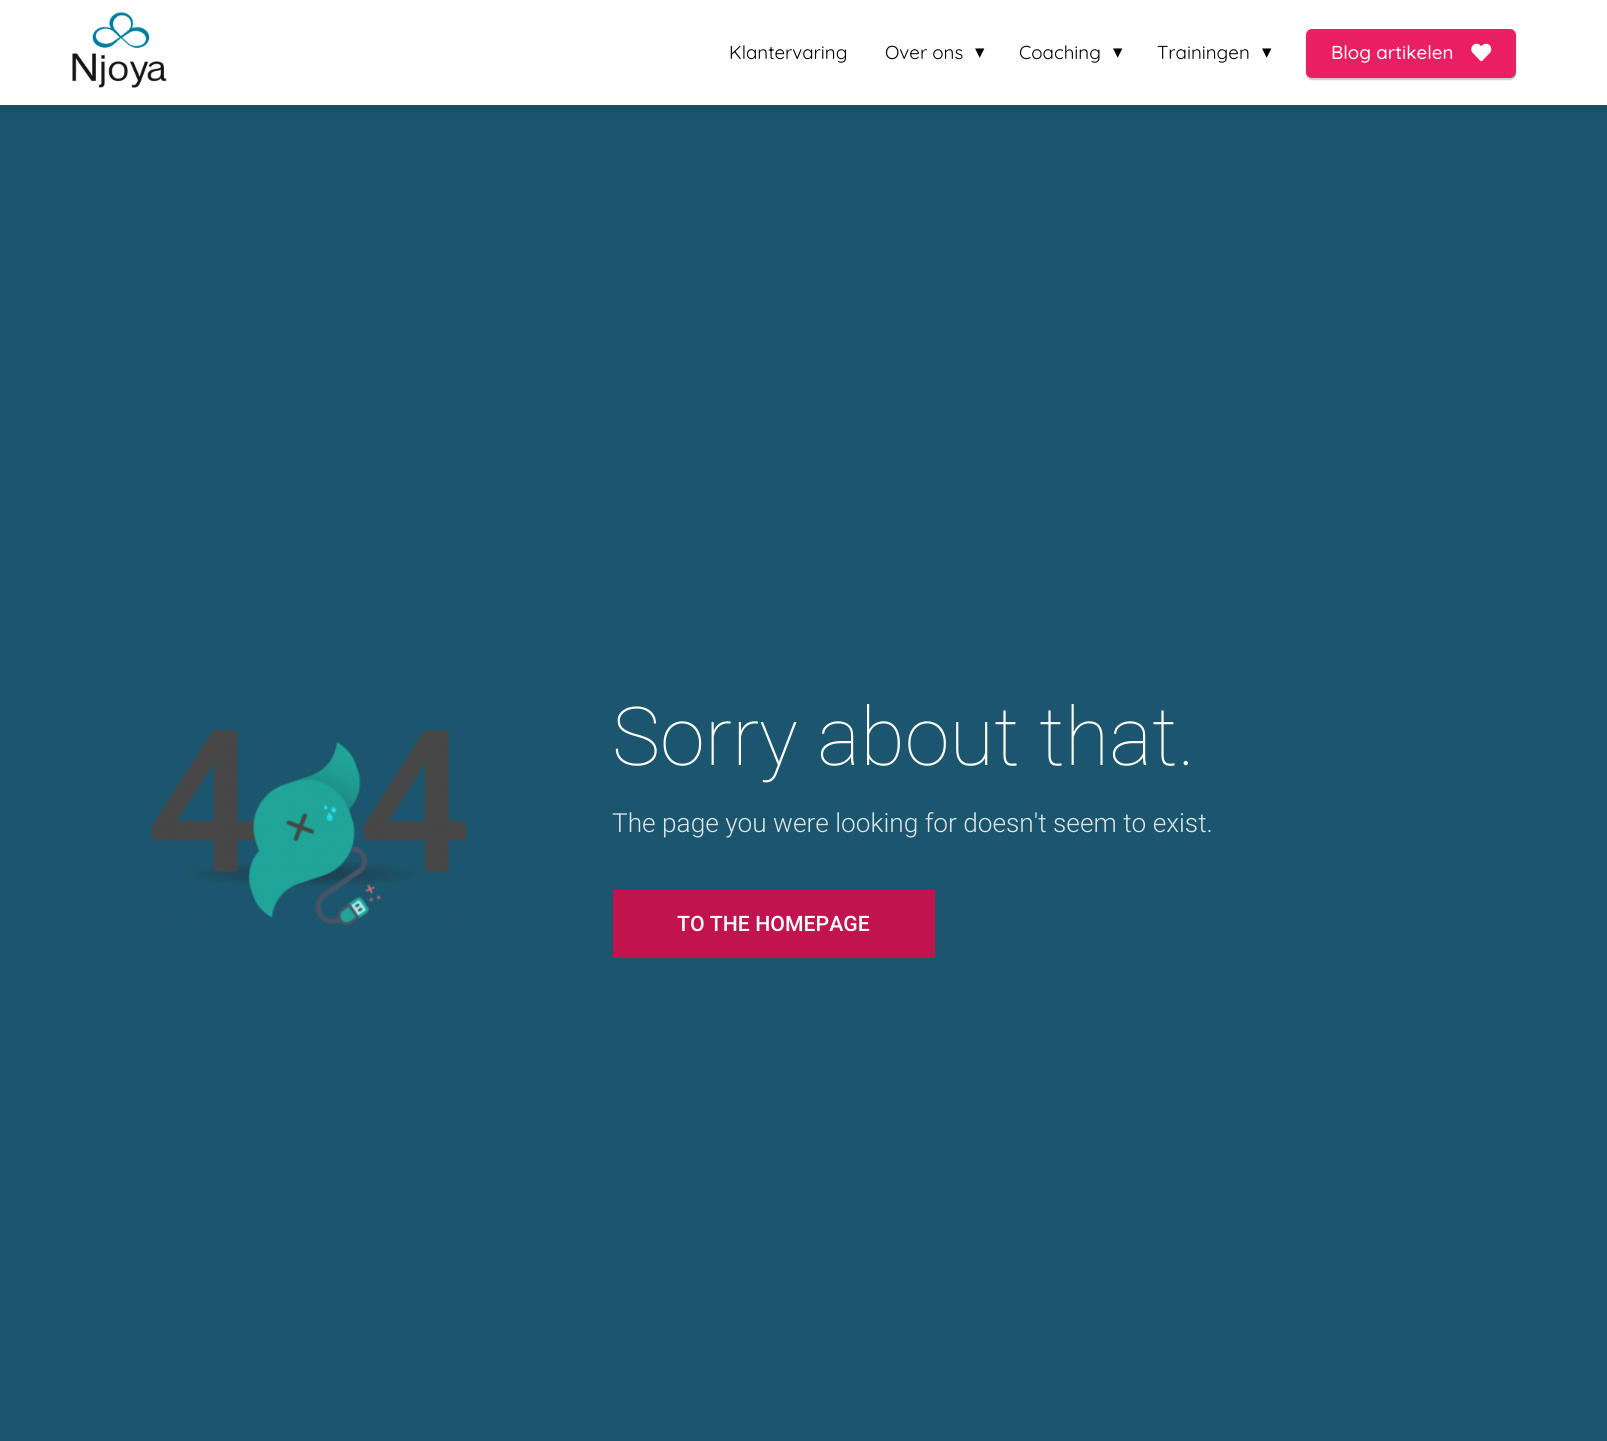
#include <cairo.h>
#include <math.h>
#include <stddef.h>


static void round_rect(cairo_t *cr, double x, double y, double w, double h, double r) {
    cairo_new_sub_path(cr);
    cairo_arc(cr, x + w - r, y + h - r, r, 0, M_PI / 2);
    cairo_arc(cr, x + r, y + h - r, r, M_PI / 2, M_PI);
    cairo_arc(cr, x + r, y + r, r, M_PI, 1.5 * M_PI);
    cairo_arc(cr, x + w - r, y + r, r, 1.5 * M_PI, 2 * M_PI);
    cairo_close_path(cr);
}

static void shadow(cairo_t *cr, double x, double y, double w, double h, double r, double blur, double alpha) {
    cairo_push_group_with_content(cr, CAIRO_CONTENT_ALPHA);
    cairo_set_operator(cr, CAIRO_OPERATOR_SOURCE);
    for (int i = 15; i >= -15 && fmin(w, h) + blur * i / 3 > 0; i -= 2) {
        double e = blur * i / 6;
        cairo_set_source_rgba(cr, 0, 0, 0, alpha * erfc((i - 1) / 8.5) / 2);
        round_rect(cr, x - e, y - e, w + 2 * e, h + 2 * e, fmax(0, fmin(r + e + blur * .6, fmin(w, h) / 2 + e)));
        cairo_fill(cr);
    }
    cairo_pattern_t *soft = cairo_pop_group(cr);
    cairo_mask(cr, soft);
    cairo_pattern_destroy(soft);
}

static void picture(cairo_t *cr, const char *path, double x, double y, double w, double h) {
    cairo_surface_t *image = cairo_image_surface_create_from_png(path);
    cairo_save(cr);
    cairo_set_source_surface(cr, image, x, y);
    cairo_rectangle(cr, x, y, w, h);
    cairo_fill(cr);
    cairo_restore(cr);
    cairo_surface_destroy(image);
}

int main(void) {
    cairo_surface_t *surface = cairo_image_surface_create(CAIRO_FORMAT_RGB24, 1607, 1441);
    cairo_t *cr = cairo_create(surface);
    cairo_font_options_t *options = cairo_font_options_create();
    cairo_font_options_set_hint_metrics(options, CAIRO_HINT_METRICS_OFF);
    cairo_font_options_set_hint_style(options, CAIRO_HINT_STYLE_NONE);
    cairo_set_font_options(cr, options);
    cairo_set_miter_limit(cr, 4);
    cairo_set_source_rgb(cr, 1, 1, 1);
    cairo_paint(cr);
    cairo_set_source_rgb(cr, 0.11, 0.337, 0.431);
    cairo_rectangle(cr, 0, 105, 1607, 1336);
    cairo_fill(cr);
    cairo_save(cr);
    cairo_rectangle(cr, 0, 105, 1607, 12);
    cairo_clip(cr);
    cairo_set_source_rgb(cr, 0, 0, 0);
    shadow(cr, 0, 0, 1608, 105, 0, 9.5, 0.2);
    cairo_restore(cr);
    picture(cr, "img1.png", 72, 12, 95, 76);
    cairo_select_font_face(cr, "Quicksand", CAIRO_FONT_SLANT_NORMAL, CAIRO_FONT_WEIGHT_NORMAL);
    cairo_set_font_size(cr, 18.75);
    cairo_set_source_rgb(cr, 0, 0, 0);
    cairo_move_to(cr, 729, 59);
    cairo_show_text(cr, "Klantervaring");
    cairo_move_to(cr, 885, 59);
    cairo_show_text(cr, "Over ons");
    cairo_select_font_face(cr, "DejaVu Sans", CAIRO_FONT_SLANT_NORMAL, CAIRO_FONT_WEIGHT_NORMAL);
    cairo_move_to(cr, 975, 58);
    cairo_show_text(cr, "▾");
    cairo_select_font_face(cr, "Quicksand", CAIRO_FONT_SLANT_NORMAL, CAIRO_FONT_WEIGHT_NORMAL);
    cairo_move_to(cr, 1019, 59);
    cairo_show_text(cr, "Coaching");
    cairo_select_font_face(cr, "DejaVu Sans", CAIRO_FONT_SLANT_NORMAL, CAIRO_FONT_WEIGHT_NORMAL);
    cairo_move_to(cr, 1113, 58);
    cairo_show_text(cr, "▾");
    cairo_select_font_face(cr, "Quicksand", CAIRO_FONT_SLANT_NORMAL, CAIRO_FONT_WEIGHT_NORMAL);
    cairo_move_to(cr, 1157, 59);
    cairo_show_text(cr, "Trainingen");
    cairo_select_font_face(cr, "DejaVu Sans", CAIRO_FONT_SLANT_NORMAL, CAIRO_FONT_WEIGHT_NORMAL);
    cairo_move_to(cr, 1262, 58);
    cairo_show_text(cr, "▾");
    cairo_set_source_rgb(cr, 0, 0, 0);
    shadow(cr, 1306, 31, 210, 49, 6, 0.5, 0.2);
    cairo_set_source_rgb(cr, 0.914, 0.118, 0.388);
    round_rect(cr, 1306, 29, 210, 49, 6);
    cairo_fill(cr);
    cairo_select_font_face(cr, "Quicksand Medium", CAIRO_FONT_SLANT_NORMAL, CAIRO_FONT_WEIGHT_NORMAL);
    cairo_set_source_rgb(cr, 1, 1, 1);
    cairo_move_to(cr, 1331, 59);
    cairo_show_text(cr, "Blog artikelen");
    picture(cr, "img2.png", 1471, 43, 21, 19);
    picture(cr, "img3.png", 151, 730, 316, 196);
    cairo_select_font_face(cr, "Roboto Thin", CAIRO_FONT_SLANT_NORMAL, CAIRO_FONT_WEIGHT_NORMAL);
    cairo_set_font_size(cr, 81.25);
    cairo_move_to(cr, 612, 765);
    cairo_show_text(cr, "Sorry about that.");
    cairo_select_font_face(cr, "Roboto Light", CAIRO_FONT_SLANT_NORMAL, CAIRO_FONT_WEIGHT_NORMAL);
    cairo_set_font_size(cr, 26.25);
    cairo_set_source_rgb(cr, 0.867, 0.902, 0.914);
    cairo_move_to(cr, 612, 832);
    cairo_show_text(cr, "The page you were looking for doesn't seem to exist.");
    cairo_set_source_rgb(cr, 0.757, 0.075, 0.306);
    cairo_rectangle(cr, 613, 890, 322, 68);
    cairo_fill(cr);
    cairo_select_font_face(cr, "Roboto Medium", CAIRO_FONT_SLANT_NORMAL, CAIRO_FONT_WEIGHT_NORMAL);
    cairo_set_font_size(cr, 21.25);
    cairo_set_source_rgb(cr, 1, 1, 1);
    cairo_move_to(cr, 677, 931);
    cairo_show_text(cr, "TO THE HOMEPAGE");
    cairo_surface_write_to_png(surface, "page.png");
    cairo_font_options_destroy(options);
    cairo_destroy(cr);
    cairo_surface_destroy(surface);
    return 0;
}
